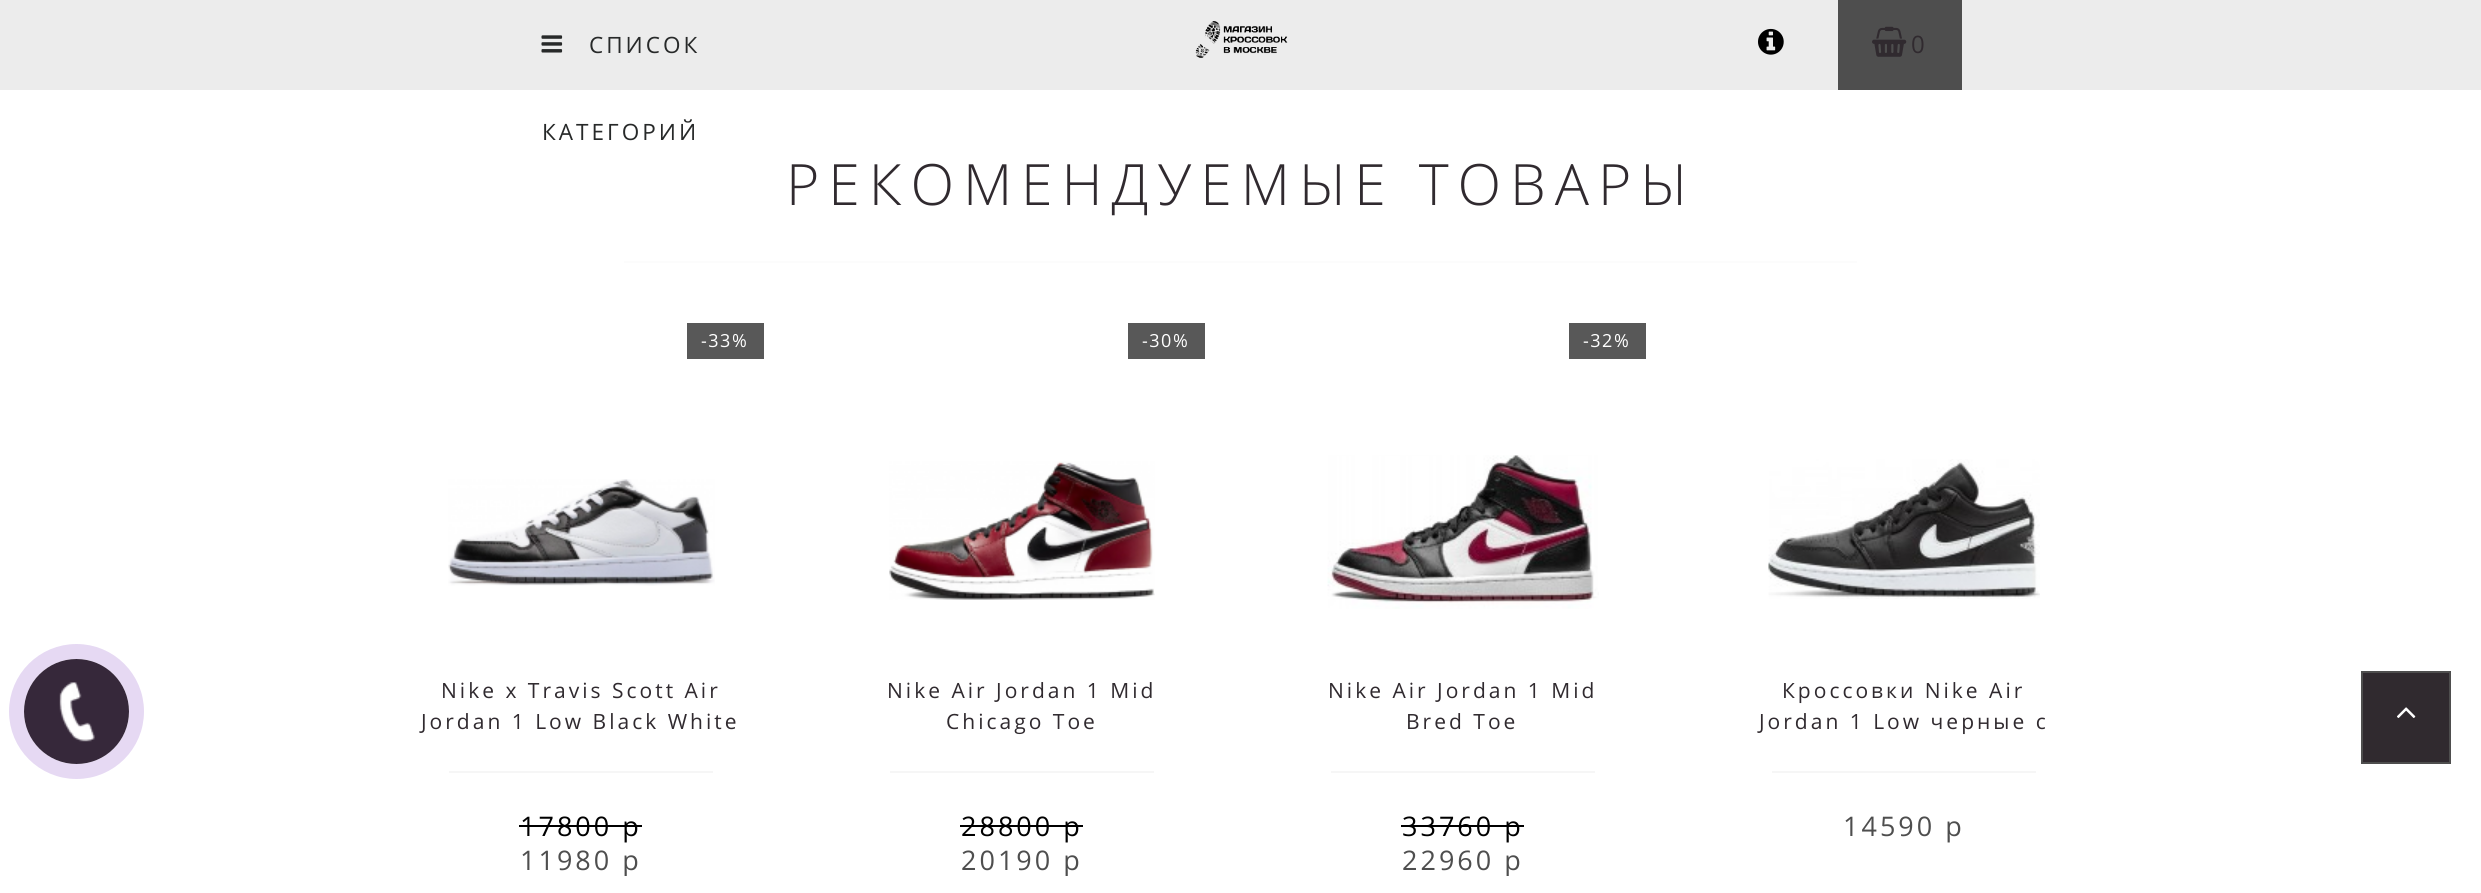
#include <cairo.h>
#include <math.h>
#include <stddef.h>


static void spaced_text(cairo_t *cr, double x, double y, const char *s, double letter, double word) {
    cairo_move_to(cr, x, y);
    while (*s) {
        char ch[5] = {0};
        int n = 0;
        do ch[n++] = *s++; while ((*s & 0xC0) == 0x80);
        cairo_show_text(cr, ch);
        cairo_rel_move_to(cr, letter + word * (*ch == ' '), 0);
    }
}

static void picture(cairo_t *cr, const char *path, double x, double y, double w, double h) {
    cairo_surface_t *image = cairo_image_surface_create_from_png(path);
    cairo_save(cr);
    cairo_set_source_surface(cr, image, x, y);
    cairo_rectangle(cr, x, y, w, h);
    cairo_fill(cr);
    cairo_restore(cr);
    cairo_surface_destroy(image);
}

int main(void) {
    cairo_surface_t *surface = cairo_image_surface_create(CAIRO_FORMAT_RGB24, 2481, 893);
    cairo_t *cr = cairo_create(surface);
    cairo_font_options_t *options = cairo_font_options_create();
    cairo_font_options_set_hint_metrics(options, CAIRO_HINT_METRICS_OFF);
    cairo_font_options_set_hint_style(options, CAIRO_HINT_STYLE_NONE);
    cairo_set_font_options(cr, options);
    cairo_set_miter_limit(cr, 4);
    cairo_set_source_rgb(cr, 1, 1, 1);
    cairo_paint(cr);
    cairo_set_source_rgb(cr, 0.925, 0.925, 0.925);
    cairo_rectangle(cr, 0, 0, 2481, 90);
    cairo_fill(cr);
    picture(cr, "img1.png", 541, 35, 22, 18);
    cairo_select_font_face(cr, "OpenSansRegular", CAIRO_FONT_SLANT_NORMAL, CAIRO_FONT_WEIGHT_NORMAL);
    cairo_set_font_size(cr, 22.5);
    cairo_set_source_rgb(cr, 0.153, 0.161, 0.161);
    spaced_text(cr, 589, 53, "СПИСОК", 3, 0);
    spaced_text(cr, 542, 140, "КАТЕГОРИЙ", 3, 0);
    picture(cr, "img2.png", 1195, 21, 93, 37);
    picture(cr, "img3.png", 1758, 28, 26, 27);
    cairo_set_source_rgb(cr, 0.306, 0.306, 0.306);
    cairo_rectangle(cr, 1838, 0, 124, 90);
    cairo_fill(cr);
    picture(cr, "img4.png", 1872, 26, 35, 31);
    cairo_select_font_face(cr, "Open Sans", CAIRO_FONT_SLANT_NORMAL, CAIRO_FONT_WEIGHT_NORMAL);
    cairo_set_font_size(cr, 24);
    cairo_set_source_rgb(cr, 0.188, 0.165, 0.184);
    spaced_text(cr, 1911, 53, "0", 3, 0);
    cairo_select_font_face(cr, "Open Sans Light", CAIRO_FONT_SLANT_NORMAL, CAIRO_FONT_WEIGHT_NORMAL);
    cairo_set_font_size(cr, 57);
    spaced_text(cr, 786, 205, "РЕКОМЕНДУЕМЫЕ ТОВАРЫ", 9, 0);
    cairo_set_source_rgb(cr, 0.988, 0.988, 0.988);
    cairo_rectangle(cr, 624, 261, 1233, 2);
    cairo_fill(cr);
    cairo_set_source_rgb(cr, 0.345, 0.345, 0.345);
    cairo_rectangle(cr, 687, 323, 77, 36);
    cairo_fill(cr);
    cairo_select_font_face(cr, "OpenSansRegular", CAIRO_FONT_SLANT_NORMAL, CAIRO_FONT_WEIGHT_NORMAL);
    cairo_set_font_size(cr, 18);
    cairo_set_source_rgb(cr, 1, 1, 1);
    spaced_text(cr, 701, 347, "-33%", 1.5, 0);
    picture(cr, "img5.png", 448, 479, 267, 107);
    cairo_set_font_size(cr, 21);
    cairo_set_source_rgb(cr, 0.188, 0.165, 0.184);
    spaced_text(cr, 441, 698, "Nike x Travis Scott Air", 3, 0);
    spaced_text(cr, 421, 729, "Jordan 1 Low Black White", 3, 0);
    cairo_set_source_rgb(cr, 0.961, 0.961, 0.961);
    cairo_rectangle(cr, 449, 771, 264, 2);
    cairo_fill(cr);
    cairo_set_font_size(cr, 27);
    cairo_set_source_rgb(cr, 0, 0, 0);
    spaced_text(cr, 520, 836, "17800 р", 3, 0);
    cairo_rectangle(cr, 519, 825, 123, 2);
    cairo_fill(cr);
    cairo_save(cr);
    cairo_rectangle(cr, 392, 771, 378, 105);
    cairo_clip(cr);
    cairo_set_source_rgb(cr, 0.306, 0.306, 0.306);
    spaced_text(cr, 520, 870, "11980 р", 3, 0);
    cairo_restore(cr);
    cairo_set_source_rgb(cr, 0.345, 0.345, 0.345);
    cairo_rectangle(cr, 1128, 323, 77, 36);
    cairo_fill(cr);
    cairo_set_font_size(cr, 18);
    cairo_set_source_rgb(cr, 1, 1, 1);
    spaced_text(cr, 1142, 347, "-30%", 1.5, 0);
    picture(cr, "img6.png", 889, 461, 266, 139);
    cairo_set_font_size(cr, 21);
    cairo_set_source_rgb(cr, 0.188, 0.165, 0.184);
    spaced_text(cr, 887, 698, "Nike Air Jordan 1 Mid", 3, 0);
    spaced_text(cr, 946, 729, "Chicago Toe", 3, 0);
    cairo_set_source_rgb(cr, 0.961, 0.961, 0.961);
    cairo_rectangle(cr, 890, 771, 264, 2);
    cairo_fill(cr);
    cairo_set_font_size(cr, 27);
    cairo_set_source_rgb(cr, 0, 0, 0);
    spaced_text(cr, 961, 836, "28800 р", 3, 0);
    cairo_rectangle(cr, 960, 825, 123, 2);
    cairo_fill(cr);
    cairo_save(cr);
    cairo_rectangle(cr, 833, 771, 378, 105);
    cairo_clip(cr);
    cairo_set_source_rgb(cr, 0.306, 0.306, 0.306);
    spaced_text(cr, 961, 870, "20190 р", 3, 0);
    cairo_restore(cr);
    cairo_set_source_rgb(cr, 0.345, 0.345, 0.345);
    cairo_rectangle(cr, 1569, 323, 77, 36);
    cairo_fill(cr);
    cairo_set_font_size(cr, 18);
    cairo_set_source_rgb(cr, 1, 1, 1);
    spaced_text(cr, 1583, 347, "-32%", 1.5, 0);
    picture(cr, "img7.png", 1327, 455, 272, 154);
    cairo_set_font_size(cr, 21);
    cairo_set_source_rgb(cr, 0.188, 0.165, 0.184);
    spaced_text(cr, 1328, 698, "Nike Air Jordan 1 Mid", 3, 0);
    spaced_text(cr, 1406, 729, "Bred Toe", 3, 0);
    cairo_set_source_rgb(cr, 0.961, 0.961, 0.961);
    cairo_rectangle(cr, 1331, 771, 264, 2);
    cairo_fill(cr);
    cairo_set_font_size(cr, 27);
    cairo_set_source_rgb(cr, 0, 0, 0);
    spaced_text(cr, 1402, 836, "33760 р", 3, 0);
    cairo_rectangle(cr, 1401, 825, 123, 2);
    cairo_fill(cr);
    cairo_save(cr);
    cairo_rectangle(cr, 1274, 771, 378, 105);
    cairo_clip(cr);
    cairo_set_source_rgb(cr, 0.306, 0.306, 0.306);
    spaced_text(cr, 1402, 870, "22960 р", 3, 0);
    cairo_restore(cr);
    picture(cr, "img8.png", 1768, 459, 272, 140);
    cairo_set_font_size(cr, 21);
    cairo_set_source_rgb(cr, 0.188, 0.165, 0.184);
    spaced_text(cr, 1782, 698, "Кроссовки Nike Air", 3, 0);
    spaced_text(cr, 1759, 729, "Jordan 1 Low черные с", 3, 0);
    cairo_set_source_rgb(cr, 0.961, 0.961, 0.961);
    cairo_rectangle(cr, 1772, 771, 264, 2);
    cairo_fill(cr);
    cairo_set_font_size(cr, 27);
    cairo_set_source_rgb(cr, 0.306, 0.306, 0.306);
    spaced_text(cr, 1843, 836, "14590 р", 3, 0);
    cairo_new_path(cr);
    cairo_arc(cr, 76.5, 711.5, 60, 0, 2 * M_PI);
    cairo_set_source_rgb(cr, 0.902, 0.851, 0.953);
    cairo_set_line_width(cr, 15);
    cairo_stroke(cr);
    cairo_set_source_rgb(cr, 0.212, 0.157, 0.227);
    cairo_arc(cr, 76.5, 711.5, 52.5, 0, 2 * M_PI);
    cairo_fill(cr);
    picture(cr, "img9.png", 59, 682, 36, 60);
    cairo_set_source_rgb(cr, 0.188, 0.165, 0.184);
    cairo_rectangle(cr, 2362, 672, 88, 91);
    cairo_fill_preserve(cr);
    cairo_set_source_rgb(cr, 0.306, 0.306, 0.306);
    cairo_set_line_width(cr, 2);
    cairo_stroke(cr);
    picture(cr, "img10.png", 2397, 707, 19, 11);
    cairo_surface_write_to_png(surface, "page.png");
    cairo_font_options_destroy(options);
    cairo_destroy(cr);
    cairo_surface_destroy(surface);
    return 0;
}
